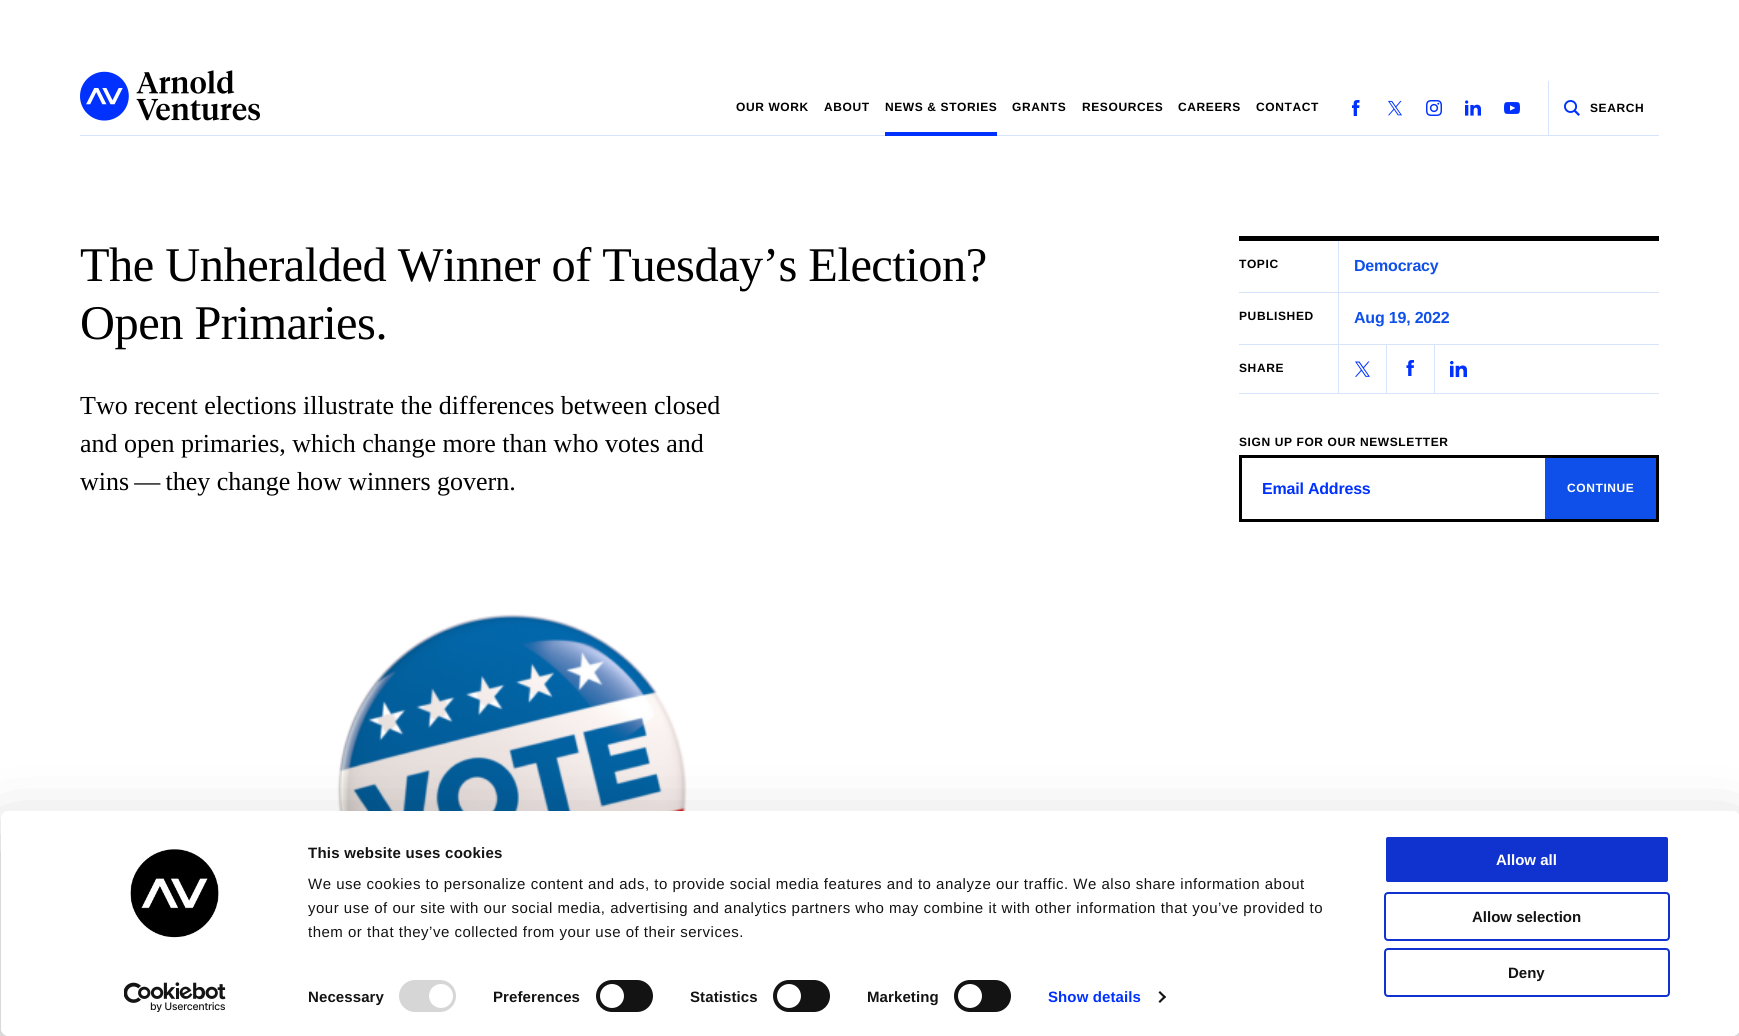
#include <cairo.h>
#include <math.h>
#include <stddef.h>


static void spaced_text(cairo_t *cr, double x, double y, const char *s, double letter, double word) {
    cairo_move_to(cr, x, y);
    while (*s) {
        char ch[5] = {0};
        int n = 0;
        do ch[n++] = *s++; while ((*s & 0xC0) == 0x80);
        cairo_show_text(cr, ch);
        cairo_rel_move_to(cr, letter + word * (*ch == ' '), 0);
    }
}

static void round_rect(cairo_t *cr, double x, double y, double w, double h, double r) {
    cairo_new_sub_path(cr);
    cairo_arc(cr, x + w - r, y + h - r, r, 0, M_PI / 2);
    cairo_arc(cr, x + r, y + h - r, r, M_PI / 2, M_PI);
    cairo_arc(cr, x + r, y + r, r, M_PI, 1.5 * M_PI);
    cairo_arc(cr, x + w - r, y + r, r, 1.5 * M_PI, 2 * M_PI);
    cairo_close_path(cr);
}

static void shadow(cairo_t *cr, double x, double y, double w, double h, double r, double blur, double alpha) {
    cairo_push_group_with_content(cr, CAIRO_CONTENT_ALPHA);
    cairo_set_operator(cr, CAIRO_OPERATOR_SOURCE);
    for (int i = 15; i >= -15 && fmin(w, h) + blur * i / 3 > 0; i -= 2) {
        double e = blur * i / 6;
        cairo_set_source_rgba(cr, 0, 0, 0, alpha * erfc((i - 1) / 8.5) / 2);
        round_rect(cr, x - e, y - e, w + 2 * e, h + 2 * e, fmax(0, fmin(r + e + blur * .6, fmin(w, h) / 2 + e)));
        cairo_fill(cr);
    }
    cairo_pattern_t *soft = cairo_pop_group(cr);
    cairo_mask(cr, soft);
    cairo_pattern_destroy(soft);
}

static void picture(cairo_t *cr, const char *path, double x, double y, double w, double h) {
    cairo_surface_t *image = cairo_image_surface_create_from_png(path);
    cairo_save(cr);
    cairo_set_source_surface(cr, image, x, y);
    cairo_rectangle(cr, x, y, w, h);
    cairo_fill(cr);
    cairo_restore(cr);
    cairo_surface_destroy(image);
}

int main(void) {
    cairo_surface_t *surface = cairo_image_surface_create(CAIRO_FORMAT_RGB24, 1739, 1036);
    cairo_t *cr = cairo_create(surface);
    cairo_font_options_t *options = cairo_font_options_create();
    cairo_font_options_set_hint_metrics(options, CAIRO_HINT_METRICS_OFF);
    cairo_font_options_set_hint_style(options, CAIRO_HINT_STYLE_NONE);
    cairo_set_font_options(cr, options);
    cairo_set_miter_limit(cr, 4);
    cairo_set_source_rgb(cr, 1, 1, 1);
    cairo_paint(cr);
    cairo_set_source_rgb(cr, 0.847, 0.89, 0.988);
    cairo_rectangle(cr, 80, 135, 1579, 1);
    cairo_fill(cr);
    picture(cr, "img1.png", 80, 70, 180, 51);
    cairo_select_font_face(cr, "Liberation Sans", CAIRO_FONT_SLANT_NORMAL, CAIRO_FONT_WEIGHT_BOLD);
    cairo_set_font_size(cr, 12);
    cairo_set_source_rgb(cr, 0, 0, 0);
    spaced_text(cr, 736, 111, "OUR WORK", 0.6, 0);
    spaced_text(cr, 824, 111, "ABOUT", 0.6, 0);
    spaced_text(cr, 885, 111, "NEWS & STORIES", 0.6, 0);
    cairo_set_source_rgb(cr, 0, 0.192, 1);
    cairo_rectangle(cr, 885, 132, 112, 4);
    cairo_fill(cr);
    cairo_set_source_rgb(cr, 0, 0, 0);
    spaced_text(cr, 1012, 111, "GRANTS", 0.6, 0);
    spaced_text(cr, 1082, 111, "RESOURCES", 0.6, 0);
    spaced_text(cr, 1178, 111, "CAREERS", 0.6, 0);
    spaced_text(cr, 1256, 111, "CONTACT", 0.6, 0);
    picture(cr, "img2.png", 1352, 100, 8, 16);
    picture(cr, "img3.png", 1388, 100, 14, 16);
    picture(cr, "img4.png", 1426, 100, 16, 16);
    picture(cr, "img5.png", 1465, 100, 16, 16);
    picture(cr, "img6.png", 1504, 102, 16, 12);
    cairo_set_source_rgb(cr, 0.847, 0.89, 0.988);
    cairo_rectangle(cr, 1548, 81, 1, 55);
    cairo_fill(cr);
    picture(cr, "img7.png", 1564, 100, 16, 16);
    cairo_set_source_rgb(cr, 0, 0, 0);
    spaced_text(cr, 1590, 112, "SEARCH", 0.6, 0);
    cairo_select_font_face(cr, "Liberation Serif", CAIRO_FONT_SLANT_NORMAL, CAIRO_FONT_WEIGHT_NORMAL);
    cairo_set_font_size(cr, 48.4);
    spaced_text(cr, 80, 281, "The Unheralded Winner of Tuesday’s Election?", -0.5, 0);
    spaced_text(cr, 80, 339, "Open Primaries.", -0.5, 0);
    cairo_set_font_size(cr, 26);
    cairo_move_to(cr, 80, 414);
    cairo_show_text(cr, "Two recent elections illustrate the differences between closed");
    cairo_move_to(cr, 80, 452);
    cairo_show_text(cr, "and open primaries, which change more than who votes and");
    cairo_move_to(cr, 80, 490);
    cairo_show_text(cr, "wins — they change how winners govern.");
    picture(cr, "img8.png", 337, 614, 350, 197);
    cairo_rectangle(cr, 1239, 236, 420, 5);
    cairo_fill(cr);
    cairo_set_source_rgb(cr, 0.847, 0.89, 0.988);
    cairo_rectangle(cr, 1239, 292, 420, 1);
    cairo_fill(cr);
    cairo_rectangle(cr, 1338, 241, 1, 51);
    cairo_fill(cr);
    cairo_select_font_face(cr, "Liberation Sans", CAIRO_FONT_SLANT_NORMAL, CAIRO_FONT_WEIGHT_BOLD);
    cairo_set_font_size(cr, 12);
    cairo_set_source_rgb(cr, 0, 0, 0);
    spaced_text(cr, 1239, 268, "TOPIC", 0.6, 0);
    cairo_set_font_size(cr, 16);
    cairo_set_source_rgb(cr, 0.055, 0.314, 0.914);
    spaced_text(cr, 1354, 271, "Democracy", -0.2, 0);
    cairo_set_source_rgb(cr, 0.847, 0.89, 0.988);
    cairo_rectangle(cr, 1239, 344, 420, 1);
    cairo_fill(cr);
    cairo_rectangle(cr, 1338, 293, 1, 51);
    cairo_fill(cr);
    cairo_set_font_size(cr, 12);
    cairo_set_source_rgb(cr, 0, 0, 0);
    spaced_text(cr, 1239, 320, "PUBLISHED", 0.6, 0);
    cairo_set_font_size(cr, 16);
    cairo_set_source_rgb(cr, 0.055, 0.314, 0.914);
    spaced_text(cr, 1354, 323, "Aug 19, 2022", -0.2, 0);
    cairo_set_source_rgb(cr, 0.847, 0.89, 0.988);
    cairo_rectangle(cr, 1239, 393, 420, 1);
    cairo_fill(cr);
    cairo_rectangle(cr, 1338, 345, 1, 48);
    cairo_fill(cr);
    cairo_set_font_size(cr, 12);
    cairo_set_source_rgb(cr, 0, 0, 0);
    spaced_text(cr, 1239, 372, "SHARE", 0.6, 0);
    picture(cr, "img9.png", 1355, 361, 15, 16);
    cairo_set_source_rgb(cr, 0.847, 0.89, 0.988);
    cairo_rectangle(cr, 1386, 345, 1, 48);
    cairo_fill(cr);
    picture(cr, "img10.png", 1406, 360, 8, 16);
    cairo_rectangle(cr, 1434, 345, 1, 48);
    cairo_fill(cr);
    picture(cr, "img11.png", 1450, 360, 17, 18);
    cairo_set_source_rgb(cr, 0, 0, 0);
    spaced_text(cr, 1239, 446, "SIGN UP FOR OUR NEWSLETTER", 0.6, 0);
    cairo_rectangle(cr, 1240.5, 456.5, 417, 64);
    cairo_set_line_width(cr, 3);
    cairo_stroke(cr);
    cairo_set_font_size(cr, 16);
    cairo_set_source_rgb(cr, 0, 0.192, 1);
    spaced_text(cr, 1262, 494, "Email Address", -0.2, 0);
    cairo_set_source_rgb(cr, 0.055, 0.314, 0.914);
    cairo_rectangle(cr, 1545, 458, 111, 61);
    cairo_fill(cr);
    cairo_set_font_size(cr, 12);
    cairo_set_source_rgb(cr, 1, 1, 1);
    spaced_text(cr, 1567, 492, "CONTINUE", 0.6, 0);
    cairo_save(cr);
    cairo_set_fill_rule(cr, CAIRO_FILL_RULE_EVEN_ODD);
    cairo_new_path(cr);
    cairo_move_to(cr, 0, 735);
    cairo_line_to(cr, 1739, 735);
    cairo_line_to(cr, 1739, 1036);
    cairo_line_to(cr, 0, 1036);
    cairo_close_path(cr);
    cairo_move_to(cr, 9, 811);
    cairo_line_to(cr, 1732, 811);
    cairo_curve_to(cr, 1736.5, 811, 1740, 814.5, 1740, 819);
    cairo_line_to(cr, 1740, 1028);
    cairo_curve_to(cr, 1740, 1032.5, 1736.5, 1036, 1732, 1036);
    cairo_line_to(cr, 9, 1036);
    cairo_curve_to(cr, 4.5, 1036, 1, 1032.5, 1, 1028);
    cairo_line_to(cr, 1, 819);
    cairo_curve_to(cr, 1, 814.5, 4.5, 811, 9, 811);
    cairo_close_path(cr);
    cairo_clip(cr);
    cairo_set_source_rgb(cr, 0, 0, 0);
    shadow(cr, 1, 841, 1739, 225, 8, 35, 0.3);
    cairo_restore(cr);
    round_rect(cr, 1, 811, 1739, 225, 8);
    cairo_fill(cr);
    picture(cr, "img12.png", 130, 849, 89, 89);
    picture(cr, "img13.png", 124, 982, 102, 30);
    cairo_save(cr);
    cairo_rectangle(cr, 308, 841, 1048, 103);
    cairo_clip(cr);
    cairo_set_font_size(cr, 15);
    cairo_set_source_rgb(cr, 0.078, 0.078, 0.078);
    spaced_text(cr, 308, 858, "This website uses cookies", 0.25, 0);
    cairo_restore(cr);
    cairo_select_font_face(cr, "Liberation Sans", CAIRO_FONT_SLANT_NORMAL, CAIRO_FONT_WEIGHT_NORMAL);
    cairo_set_font_size(cr, 15);
    cairo_set_source_rgb(cr, 0.078, 0.078, 0.078);
    spaced_text(cr, 308, 889, "We use cookies to personalize content and ads, to provide social media features and to analyze our traffic. We also share information about", 0.5, 0);
    spaced_text(cr, 308, 913, "your use of our site with our social media, advertising and analytics partners who may combine it with other information that you’ve provided to", 0.5, 0);
    spaced_text(cr, 308, 937, "them or that they’ve collected from your use of their services.", 0.5, 0);
    cairo_select_font_face(cr, "Liberation Sans", CAIRO_FONT_SLANT_NORMAL, CAIRO_FONT_WEIGHT_BOLD);
    spaced_text(cr, 308, 1002, "Necessary", 0.1, 0);
    cairo_set_source_rgb(cr, 0.839, 0.839, 0.839);
    round_rect(cr, 399, 980, 57, 32, 16);
    cairo_fill(cr);
    cairo_set_source_rgb(cr, 1, 1, 1);
    cairo_arc(cr, 441, 996, 12, 0, 2 * M_PI);
    cairo_fill(cr);
    cairo_set_source_rgb(cr, 0.078, 0.078, 0.078);
    spaced_text(cr, 493, 1002, "Preferences", 0.1, 0);
    round_rect(cr, 596, 980, 57, 32, 16);
    cairo_fill(cr);
    cairo_set_source_rgb(cr, 1, 1, 1);
    cairo_arc(cr, 612, 996, 12, 0, 2 * M_PI);
    cairo_fill(cr);
    cairo_set_source_rgb(cr, 0.078, 0.078, 0.078);
    spaced_text(cr, 690, 1002, "Statistics", 0.1, 0);
    round_rect(cr, 773, 980, 57, 32, 16);
    cairo_fill(cr);
    cairo_set_source_rgb(cr, 1, 1, 1);
    cairo_arc(cr, 789, 996, 12, 0, 2 * M_PI);
    cairo_fill(cr);
    cairo_set_source_rgb(cr, 0.078, 0.078, 0.078);
    spaced_text(cr, 867, 1002, "Marketing", 0.1, 0);
    round_rect(cr, 954, 980, 57, 32, 16);
    cairo_fill(cr);
    cairo_set_source_rgb(cr, 1, 1, 1);
    cairo_arc(cr, 970, 996, 12, 0, 2 * M_PI);
    cairo_fill(cr);
    cairo_set_source_rgb(cr, 0, 0.192, 1);
    spaced_text(cr, 1048, 1002, "Show details", 0.1, 0);
    cairo_set_source_rgb(cr, 0.078, 0.078, 0.078);
    cairo_new_path(cr);
    cairo_move_to(cr, 1160, 991);
    cairo_line_to(cr, 1166, 997);
    cairo_line_to(cr, 1164.5, 998.5);
    cairo_line_to(cr, 1158.5, 992.5);
    cairo_close_path(cr);
    cairo_fill(cr);
    cairo_new_path(cr);
    cairo_move_to(cr, 1164.5, 995.5);
    cairo_line_to(cr, 1166, 997);
    cairo_line_to(cr, 1160, 1003);
    cairo_line_to(cr, 1158.5, 1001.5);
    cairo_close_path(cr);
    cairo_fill(cr);
    cairo_set_source_rgb(cr, 0.063, 0.196, 0.812);
    round_rect(cr, 1385, 836, 284, 47, 3);
    cairo_fill_preserve(cr);
    cairo_set_source_rgb(cr, 1, 1, 1);
    cairo_set_line_width(cr, 2);
    cairo_stroke(cr);
    cairo_move_to(cr, 1496, 865);
    cairo_show_text(cr, "Allow all");
    round_rect(cr, 1385, 893, 284, 47, 3);
    cairo_set_source_rgb(cr, 0.063, 0.196, 0.812);
    cairo_stroke(cr);
    cairo_set_source_rgb(cr, 0.078, 0.078, 0.078);
    cairo_move_to(cr, 1472, 922);
    cairo_show_text(cr, "Allow selection");
    round_rect(cr, 1385, 949, 284, 47, 3);
    cairo_set_source_rgb(cr, 0.063, 0.196, 0.812);
    cairo_stroke(cr);
    cairo_set_source_rgb(cr, 0.078, 0.078, 0.078);
    cairo_move_to(cr, 1508, 978);
    cairo_show_text(cr, "Deny");
    cairo_surface_write_to_png(surface, "page.png");
    cairo_font_options_destroy(options);
    cairo_destroy(cr);
    cairo_surface_destroy(surface);
    return 0;
}
